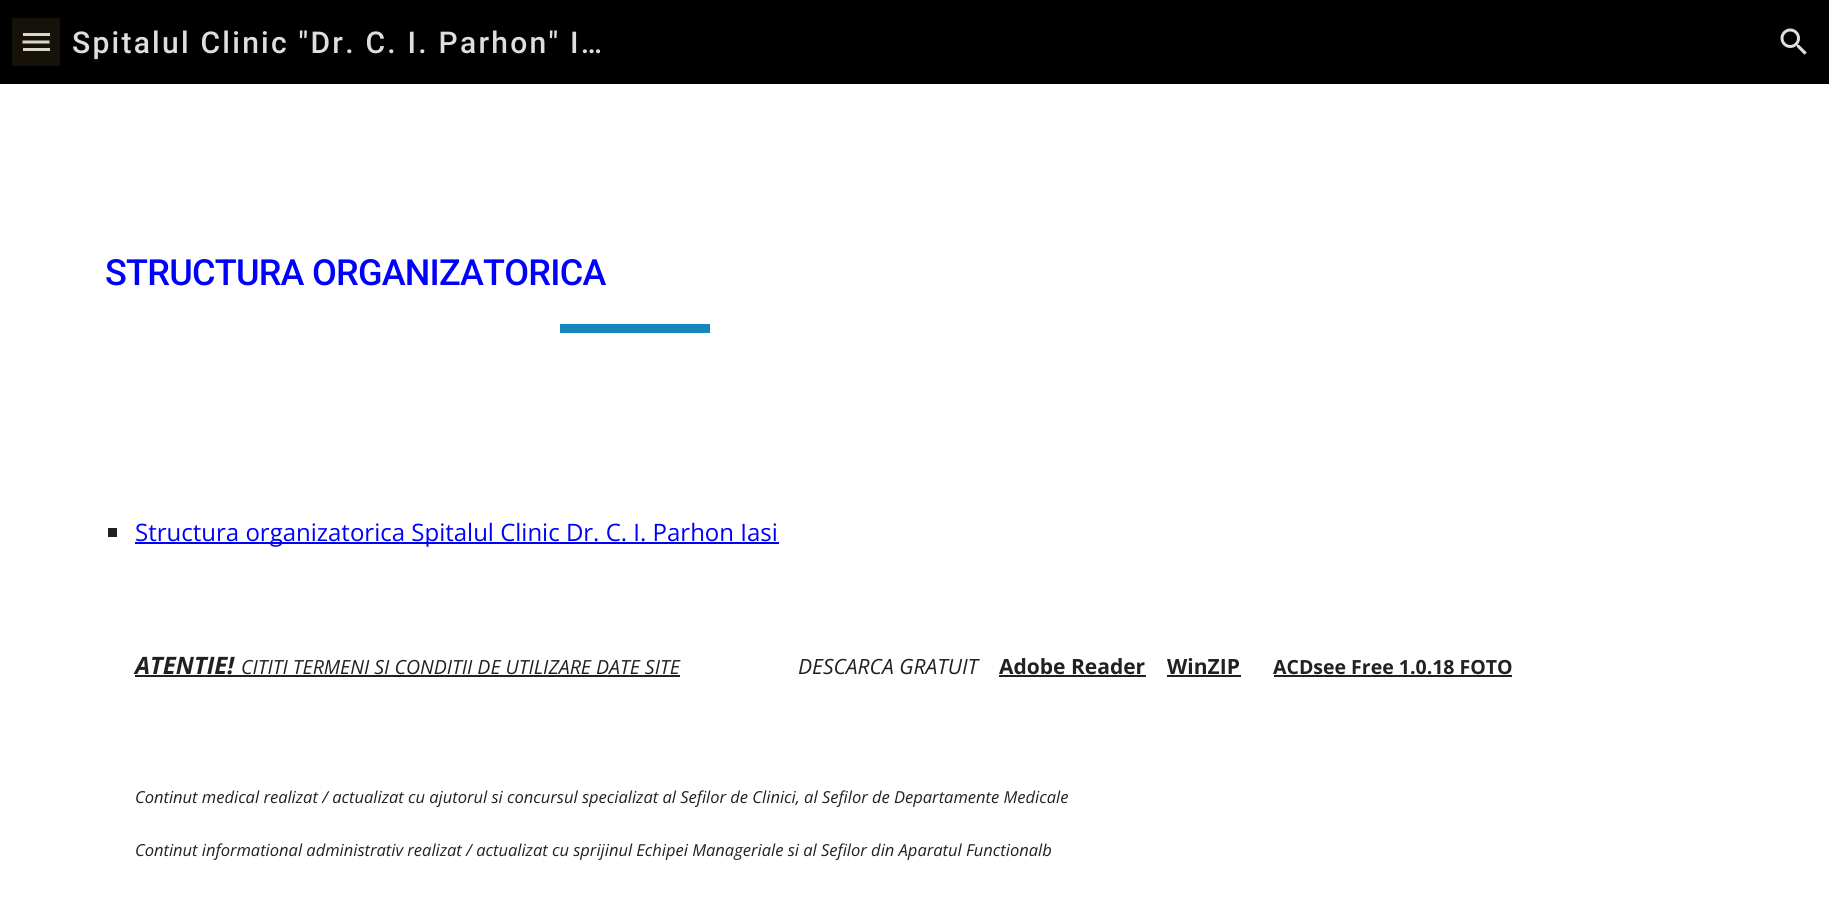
#include <cairo.h>
#include <math.h>
#include <stddef.h>


static void spaced_text(cairo_t *cr, double x, double y, const char *s, double letter, double word) {
    cairo_move_to(cr, x, y);
    while (*s) {
        char ch[5] = {0};
        int n = 0;
        do ch[n++] = *s++; while ((*s & 0xC0) == 0x80);
        cairo_show_text(cr, ch);
        cairo_rel_move_to(cr, letter + word * (*ch == ' '), 0);
    }
}

static void picture(cairo_t *cr, const char *path, double x, double y, double w, double h) {
    cairo_surface_t *image = cairo_image_surface_create_from_png(path);
    cairo_save(cr);
    cairo_set_source_surface(cr, image, x, y);
    cairo_rectangle(cr, x, y, w, h);
    cairo_fill(cr);
    cairo_restore(cr);
    cairo_surface_destroy(image);
}

int main(void) {
    cairo_surface_t *surface = cairo_image_surface_create(CAIRO_FORMAT_RGB24, 1829, 905);
    cairo_t *cr = cairo_create(surface);
    cairo_font_options_t *options = cairo_font_options_create();
    cairo_font_options_set_hint_metrics(options, CAIRO_HINT_METRICS_OFF);
    cairo_font_options_set_hint_style(options, CAIRO_HINT_STYLE_NONE);
    cairo_set_font_options(cr, options);
    cairo_set_miter_limit(cr, 4);
    cairo_set_source_rgb(cr, 1, 1, 1);
    cairo_paint(cr);
    cairo_set_source_rgb(cr, 0, 0, 0);
    cairo_rectangle(cr, 0, 0, 1829, 84);
    cairo_fill(cr);
    cairo_set_source_rgb(cr, 0.086, 0.071, 0.039);
    cairo_rectangle(cr, 12, 18, 48, 48);
    cairo_fill(cr);
    cairo_set_source_rgb(cr, 0.851, 0.839, 0.804);
    cairo_rectangle(cr, 23, 33, 27, 3);
    cairo_fill(cr);
    cairo_new_path(cr);
    cairo_move_to(cr, 22.5, 42);
    cairo_line_to(cr, 49.5, 42);
    cairo_set_line_width(cr, 3);
    cairo_stroke(cr);
    cairo_rectangle(cr, 23, 48, 27, 3);
    cairo_fill(cr);
    cairo_select_font_face(cr, "Roboto Medium", CAIRO_FONT_SLANT_NORMAL, CAIRO_FONT_WEIGHT_NORMAL);
    cairo_set_font_size(cr, 30);
    cairo_set_source_rgb(cr, 0.871, 0.871, 0.871);
    spaced_text(cr, 72, 53, "Spitalul Clinic \"Dr. C. I. Parhon\" I…", 2.25, 0);
    picture(cr, "img1.png", 1780, 28, 27, 27);
    cairo_set_font_size(cr, 36);
    cairo_set_source_rgb(cr, 0, 0, 1);
    spaced_text(cr, 105, 285, "STRUCTURA ORGANIZATORICA", -0.75, 0);
    cairo_set_source_rgb(cr, 0.09, 0.525, 0.741);
    cairo_rectangle(cr, 560, 324, 150, 9);
    cairo_fill(cr);
    cairo_set_source_rgb(cr, 0.129, 0.129, 0.129);
    cairo_rectangle(cr, 108, 528, 9, 9);
    cairo_fill(cr);
    cairo_set_source_rgb(cr, 0, 0, 1);
    cairo_rectangle(cr, 135, 542, 644, 2);
    cairo_fill(cr);
    cairo_select_font_face(cr, "Open Sans", CAIRO_FONT_SLANT_NORMAL, CAIRO_FONT_WEIGHT_NORMAL);
    cairo_set_font_size(cr, 24);
    cairo_move_to(cr, 135, 541);
    cairo_show_text(cr, "Structura organizatorica Spitalul Clinic Dr. C. I. Parhon Iasi");
    cairo_select_font_face(cr, "Open Sans", CAIRO_FONT_SLANT_ITALIC, CAIRO_FONT_WEIGHT_BOLD);
    cairo_set_source_rgb(cr, 0.129, 0.129, 0.129);
    cairo_move_to(cr, 135, 674);
    cairo_show_text(cr, "ATENTIE!");
    cairo_select_font_face(cr, "Open Sans", CAIRO_FONT_SLANT_ITALIC, CAIRO_FONT_WEIGHT_NORMAL);
    cairo_set_font_size(cr, 19.5);
    cairo_move_to(cr, 241, 674);
    cairo_show_text(cr, "CITITI TERMENI SI CONDITII DE UTILIZARE DATE SITE");
    cairo_rectangle(cr, 135, 675, 545, 2);
    cairo_fill(cr);
    cairo_set_font_size(cr, 21);
    cairo_move_to(cr, 798, 674);
    cairo_show_text(cr, "DESCARCA GRATUIT");
    cairo_select_font_face(cr, "Open Sans", CAIRO_FONT_SLANT_NORMAL, CAIRO_FONT_WEIGHT_BOLD);
    cairo_move_to(cr, 999, 674);
    cairo_show_text(cr, "Adobe Reader");
    cairo_rectangle(cr, 999, 675, 147, 2);
    cairo_fill(cr);
    cairo_move_to(cr, 1167, 674);
    cairo_show_text(cr, "WinZIP");
    cairo_rectangle(cr, 1167, 675, 74, 2);
    cairo_fill(cr);
    cairo_set_font_size(cr, 19.5);
    cairo_move_to(cr, 1273, 674);
    cairo_show_text(cr, "ACDsee Free 1.0.18 FOTO");
    cairo_rectangle(cr, 1274, 675, 238, 2);
    cairo_fill(cr);
    cairo_select_font_face(cr, "Open Sans", CAIRO_FONT_SLANT_ITALIC, CAIRO_FONT_WEIGHT_NORMAL);
    cairo_set_font_size(cr, 16.5);
    cairo_move_to(cr, 135, 803);
    cairo_show_text(cr, "Continut medical realizat / actualizat cu ajutorul si concursul specializat al Sefilor de Clinici, al Sefilor de Departamente Medicale");
    cairo_move_to(cr, 135, 856);
    cairo_show_text(cr, "Continut informational administrativ realizat / actualizat cu sprijinul Echipei Manageriale si al Sefilor din Aparatul Functionalb");
    cairo_surface_write_to_png(surface, "page.png");
    cairo_font_options_destroy(options);
    cairo_destroy(cr);
    cairo_surface_destroy(surface);
    return 0;
}
